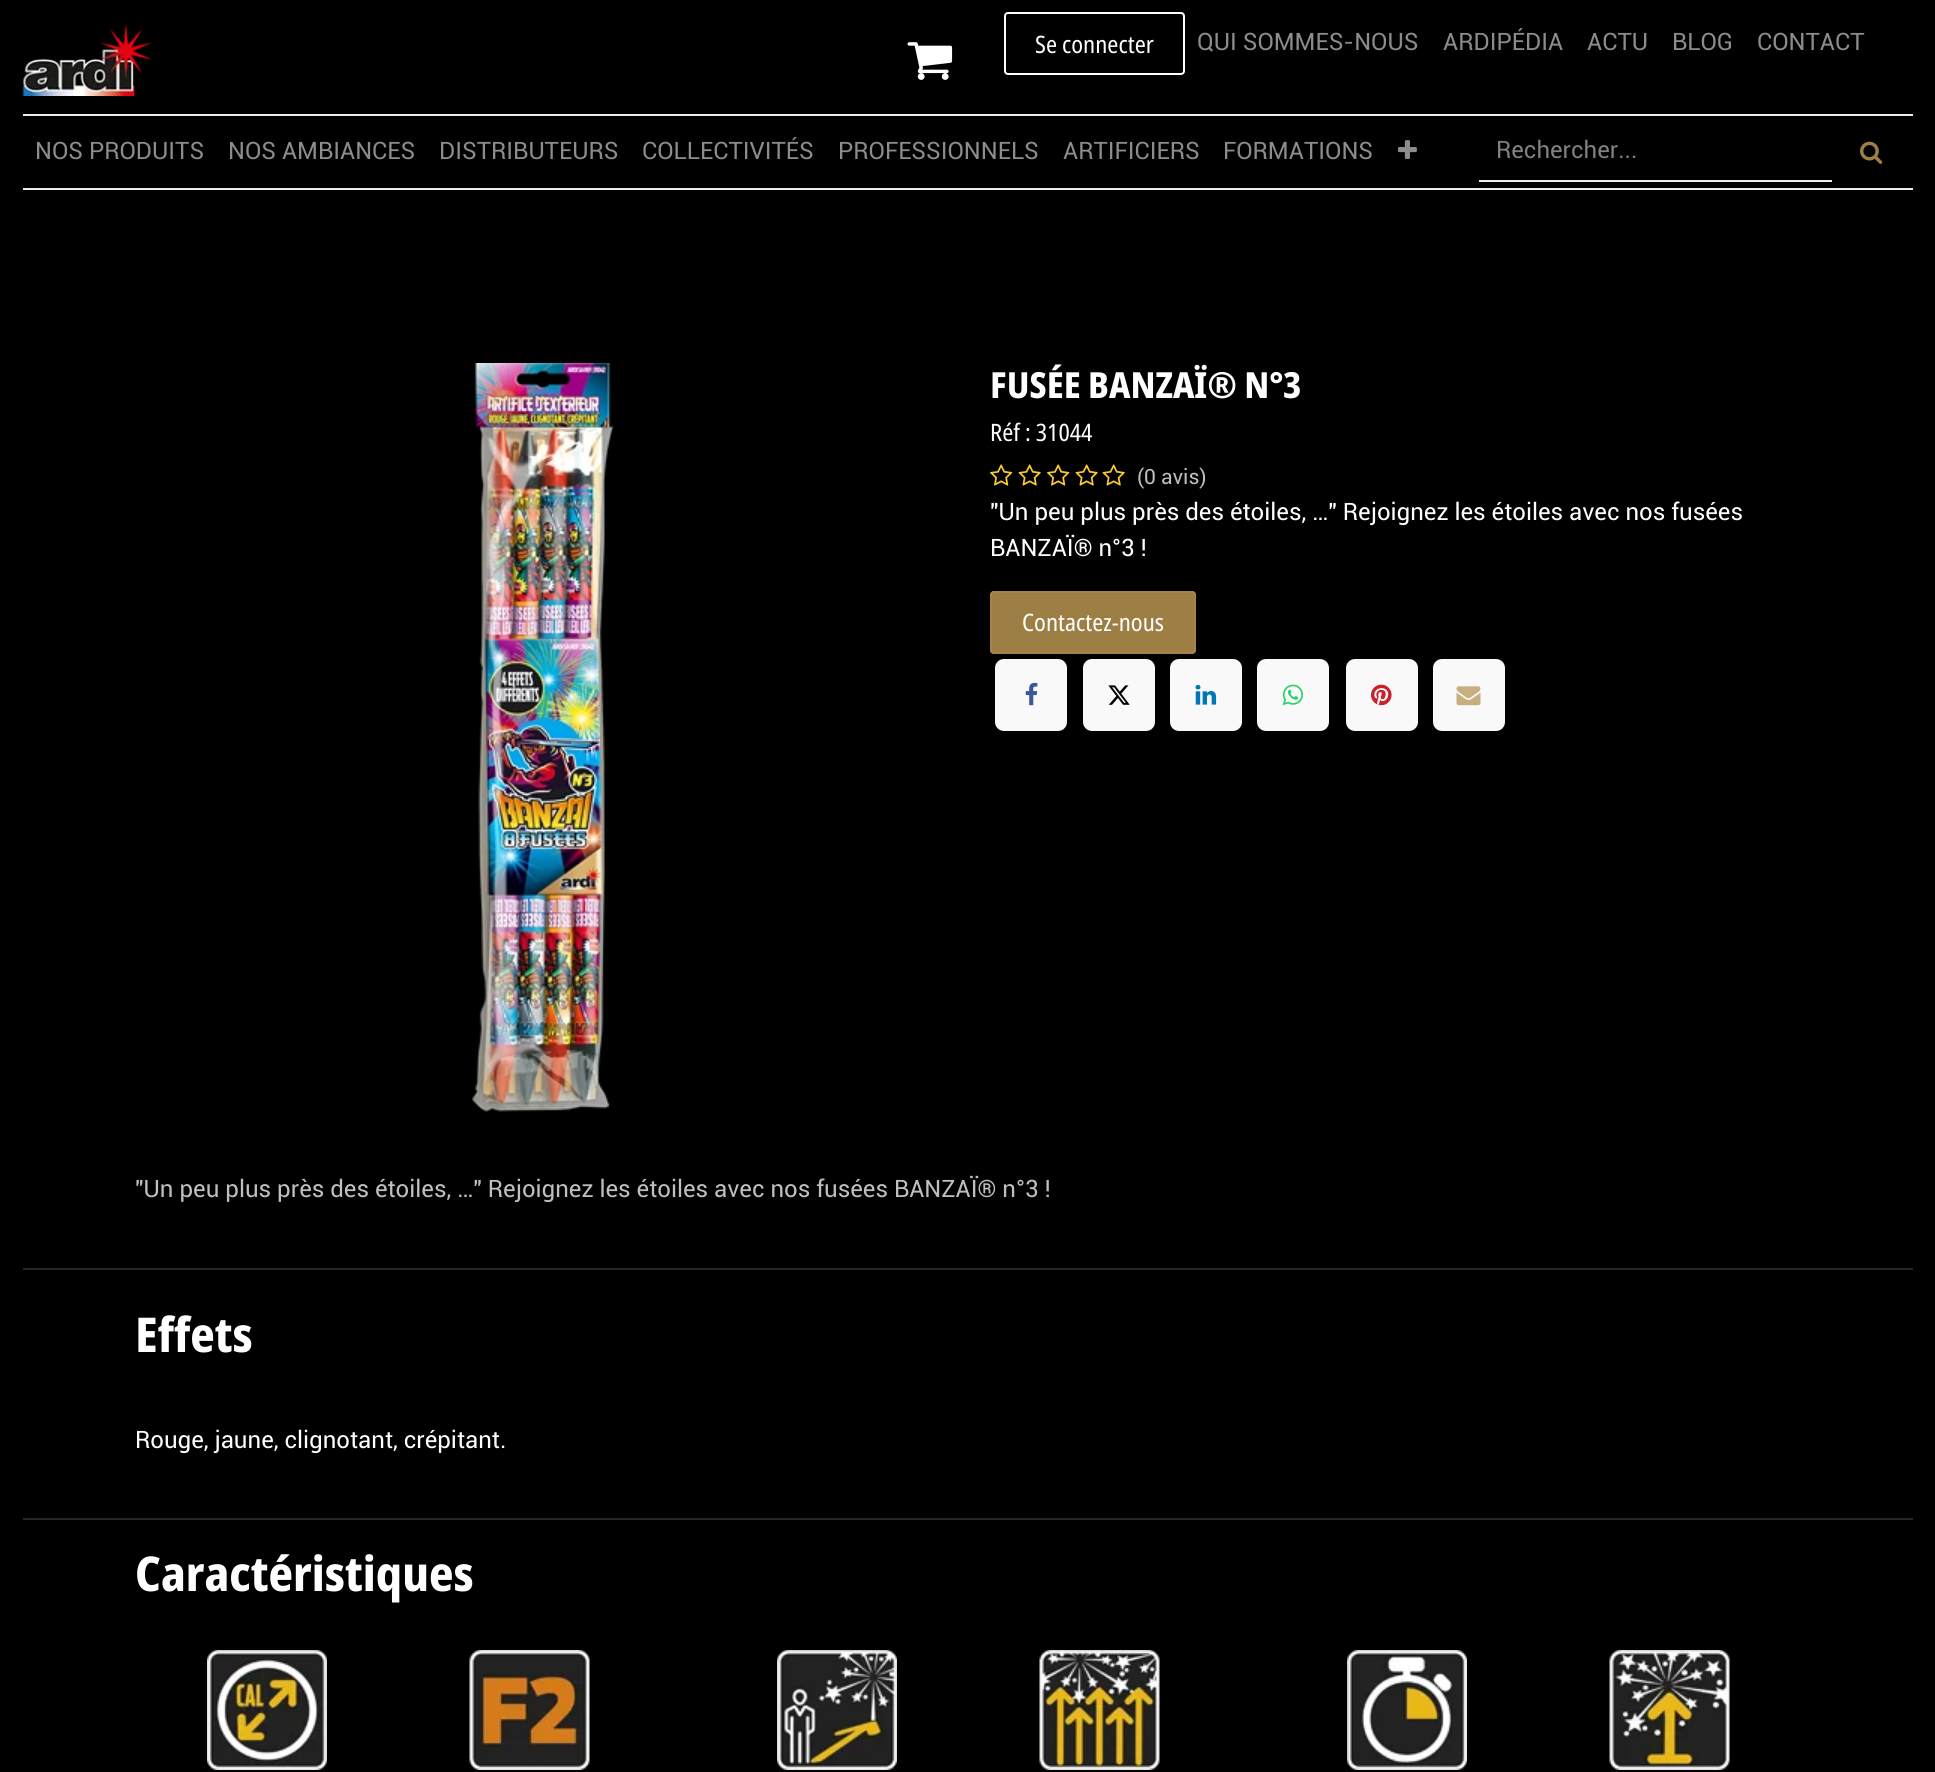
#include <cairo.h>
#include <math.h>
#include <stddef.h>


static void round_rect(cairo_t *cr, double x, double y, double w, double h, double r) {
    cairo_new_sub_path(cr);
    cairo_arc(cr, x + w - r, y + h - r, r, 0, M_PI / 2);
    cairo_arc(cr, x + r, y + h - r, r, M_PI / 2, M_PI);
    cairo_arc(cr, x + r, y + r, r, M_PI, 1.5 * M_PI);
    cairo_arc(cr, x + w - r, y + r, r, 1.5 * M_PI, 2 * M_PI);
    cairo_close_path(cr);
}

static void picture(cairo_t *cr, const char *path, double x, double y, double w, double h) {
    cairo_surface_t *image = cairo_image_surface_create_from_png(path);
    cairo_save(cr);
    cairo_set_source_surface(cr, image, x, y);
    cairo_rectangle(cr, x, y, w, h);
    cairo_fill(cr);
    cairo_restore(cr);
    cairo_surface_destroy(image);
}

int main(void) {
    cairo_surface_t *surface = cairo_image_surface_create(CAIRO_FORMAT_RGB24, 1935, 1772);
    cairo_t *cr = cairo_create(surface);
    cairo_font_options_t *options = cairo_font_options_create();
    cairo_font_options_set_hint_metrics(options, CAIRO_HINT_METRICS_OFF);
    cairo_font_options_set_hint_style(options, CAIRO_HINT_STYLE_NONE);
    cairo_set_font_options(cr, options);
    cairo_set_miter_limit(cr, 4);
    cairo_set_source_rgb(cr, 0, 0, 0);
    cairo_paint(cr);
    picture(cr, "img1.png", 22, 24, 130, 72);
    picture(cr, "img2.png", 907, 42, 46, 38);
    round_rect(cr, 1005, 13, 179, 61, 3);
    cairo_set_source_rgb(cr, 1, 1, 1);
    cairo_stroke(cr);
    cairo_select_font_face(cr, "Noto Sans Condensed", CAIRO_FONT_SLANT_NORMAL, CAIRO_FONT_WEIGHT_NORMAL);
    cairo_set_font_size(cr, 24);
    cairo_move_to(cr, 1035, 53);
    cairo_show_text(cr, "Se connecter");
    cairo_select_font_face(cr, "Roboto", CAIRO_FONT_SLANT_NORMAL, CAIRO_FONT_WEIGHT_NORMAL);
    cairo_set_source_rgb(cr, 0.549, 0.549, 0.549);
    cairo_move_to(cr, 1197, 50);
    cairo_show_text(cr, "QUI SOMMES-NOUS");
    cairo_move_to(cr, 1443, 50);
    cairo_show_text(cr, "ARDIPÉDIA");
    cairo_move_to(cr, 1587, 50);
    cairo_show_text(cr, "ACTU");
    cairo_move_to(cr, 1672, 50);
    cairo_show_text(cr, "BLOG");
    cairo_move_to(cr, 1757, 50);
    cairo_show_text(cr, "CONTACT");
    cairo_set_source_rgb(cr, 0.914, 0.925, 0.937);
    cairo_rectangle(cr, 23, 114, 1890, 2);
    cairo_fill(cr);
    cairo_set_source_rgb(cr, 0.549, 0.549, 0.549);
    cairo_move_to(cr, 35, 159);
    cairo_show_text(cr, "NOS PRODUITS");
    cairo_move_to(cr, 228, 159);
    cairo_show_text(cr, "NOS AMBIANCES");
    cairo_move_to(cr, 439, 159);
    cairo_show_text(cr, "DISTRIBUTEURS");
    cairo_move_to(cr, 642, 159);
    cairo_show_text(cr, "COLLECTIVITÉS");
    cairo_move_to(cr, 838, 159);
    cairo_show_text(cr, "PROFESSIONNELS");
    cairo_move_to(cr, 1063, 159);
    cairo_show_text(cr, "ARTIFICIERS");
    cairo_move_to(cr, 1223, 159);
    cairo_show_text(cr, "FORMATIONS");
    picture(cr, "img3.png", 1398, 140, 19, 19);
    cairo_set_source_rgb(cr, 0.914, 0.925, 0.937);
    cairo_rectangle(cr, 1479, 180, 353, 2);
    cairo_fill(cr);
    cairo_set_source_rgb(cr, 0.502, 0.502, 0.502);
    cairo_move_to(cr, 1496, 158);
    cairo_show_text(cr, "Rechercher...");
    picture(cr, "img4.png", 1860, 141, 23, 23);
    cairo_set_source_rgb(cr, 0.914, 0.925, 0.937);
    cairo_rectangle(cr, 23, 188, 1890, 2);
    cairo_fill(cr);
    picture(cr, "img5.png", 472, 363, 142, 749);
    cairo_select_font_face(cr, "Noto Sans Condensed ExtraBold", CAIRO_FONT_SLANT_NORMAL, CAIRO_FONT_WEIGHT_NORMAL);
    cairo_set_font_size(cr, 36);
    cairo_set_source_rgb(cr, 1, 1, 1);
    cairo_move_to(cr, 990, 398);
    cairo_show_text(cr, "FUSÉE BANZAÏ® N°3");
    cairo_select_font_face(cr, "Noto Sans Condensed", CAIRO_FONT_SLANT_NORMAL, CAIRO_FONT_WEIGHT_NORMAL);
    cairo_set_font_size(cr, 24);
    cairo_move_to(cr, 990, 441);
    cairo_show_text(cr, "Réf : 31044");
    picture(cr, "img6.png", 990, 464, 23, 22);
    picture(cr, "img7.png", 1018, 464, 23, 22);
    picture(cr, "img6.png", 1047, 464, 23, 22);
    picture(cr, "img7.png", 1075, 464, 23, 22);
    picture(cr, "img7.png", 1102, 464, 23, 22);
    cairo_select_font_face(cr, "Roboto", CAIRO_FONT_SLANT_NORMAL, CAIRO_FONT_WEIGHT_NORMAL);
    cairo_set_font_size(cr, 21);
    cairo_set_source_rgb(cr, 0.749, 0.749, 0.749);
    cairo_move_to(cr, 1137, 484);
    cairo_show_text(cr, "(0 avis)");
    cairo_set_font_size(cr, 24);
    cairo_set_source_rgb(cr, 1, 1, 1);
    cairo_move_to(cr, 990, 520);
    cairo_show_text(cr, "\"Un peu plus près des étoiles, …\" Rejoignez les étoiles avec nos fusées");
    cairo_move_to(cr, 990, 556);
    cairo_show_text(cr, "BANZAÏ® n°3 !");
    cairo_set_source_rgb(cr, 0.616, 0.494, 0.267);
    round_rect(cr, 990, 591, 206, 63, 4);
    cairo_fill(cr);
    round_rect(cr, 991, 592, 204, 61, 3);
    cairo_set_source_rgba(cr, 0.647, 0.522, 0.282, 0.95);
    cairo_stroke(cr);
    cairo_select_font_face(cr, "Noto Sans Condensed", CAIRO_FONT_SLANT_NORMAL, CAIRO_FONT_WEIGHT_NORMAL);
    cairo_set_source_rgb(cr, 1, 1, 1);
    cairo_move_to(cr, 1022, 631);
    cairo_show_text(cr, "Contactez-nous");
    cairo_set_source_rgb(cr, 0.973, 0.976, 0.98);
    round_rect(cr, 995, 659, 72, 72, 9);
    cairo_fill(cr);
    picture(cr, "img8.png", 1025, 682, 13, 24);
    round_rect(cr, 1083, 659, 72, 72, 9);
    cairo_fill(cr);
    picture(cr, "img9.png", 1108, 685, 22, 20);
    round_rect(cr, 1170, 659, 72, 72, 9);
    cairo_fill(cr);
    picture(cr, "img10.png", 1195, 684, 22, 21);
    round_rect(cr, 1257, 659, 72, 72, 9);
    cairo_fill(cr);
    picture(cr, "img11.png", 1282, 684, 22, 22);
    round_rect(cr, 1346, 659, 72, 72, 9);
    cairo_fill(cr);
    picture(cr, "img12.png", 1371, 684, 21, 22);
    round_rect(cr, 1433, 659, 72, 72, 9);
    cairo_fill(cr);
    picture(cr, "img13.png", 1456, 686, 25, 20);
    cairo_select_font_face(cr, "Roboto", CAIRO_FONT_SLANT_NORMAL, CAIRO_FONT_WEIGHT_NORMAL);
    cairo_set_source_rgb(cr, 0.749, 0.749, 0.749);
    cairo_move_to(cr, 135, 1197);
    cairo_show_text(cr, "\"Un peu plus près des étoiles, …\" Rejoignez les étoiles avec nos fusées BANZAÏ® n°3 !");
    cairo_set_source_rgb(cr, 0.149, 0.149, 0.149);
    cairo_rectangle(cr, 23, 1268, 1890, 2);
    cairo_fill(cr);
    cairo_select_font_face(cr, "Noto Sans Condensed ExtraBold", CAIRO_FONT_SLANT_NORMAL, CAIRO_FONT_WEIGHT_NORMAL);
    cairo_set_font_size(cr, 48);
    cairo_set_source_rgb(cr, 1, 1, 1);
    cairo_move_to(cr, 135, 1352);
    cairo_show_text(cr, "Effets");
    cairo_select_font_face(cr, "Roboto", CAIRO_FONT_SLANT_NORMAL, CAIRO_FONT_WEIGHT_NORMAL);
    cairo_set_font_size(cr, 24);
    cairo_move_to(cr, 135, 1448);
    cairo_show_text(cr, "Rouge, jaune, clignotant, crépitant.");
    cairo_set_source_rgb(cr, 0.149, 0.149, 0.149);
    cairo_rectangle(cr, 23, 1518, 1890, 2);
    cairo_fill(cr);
    cairo_select_font_face(cr, "Noto Sans Condensed ExtraBold", CAIRO_FONT_SLANT_NORMAL, CAIRO_FONT_WEIGHT_NORMAL);
    cairo_set_font_size(cr, 48);
    cairo_set_source_rgb(cr, 1, 1, 1);
    cairo_move_to(cr, 135, 1591);
    cairo_show_text(cr, "Caractéristiques");
    picture(cr, "img14.png", 207, 1650, 120, 120);
    picture(cr, "img15.png", 469, 1650, 121, 120);
    picture(cr, "img16.png", 777, 1650, 120, 120);
    picture(cr, "img17.png", 1039, 1650, 121, 120);
    picture(cr, "img18.png", 1347, 1650, 120, 120);
    picture(cr, "img19.png", 1609, 1650, 121, 120);
    cairo_surface_write_to_png(surface, "page.png");
    cairo_font_options_destroy(options);
    cairo_destroy(cr);
    cairo_surface_destroy(surface);
    return 0;
}
